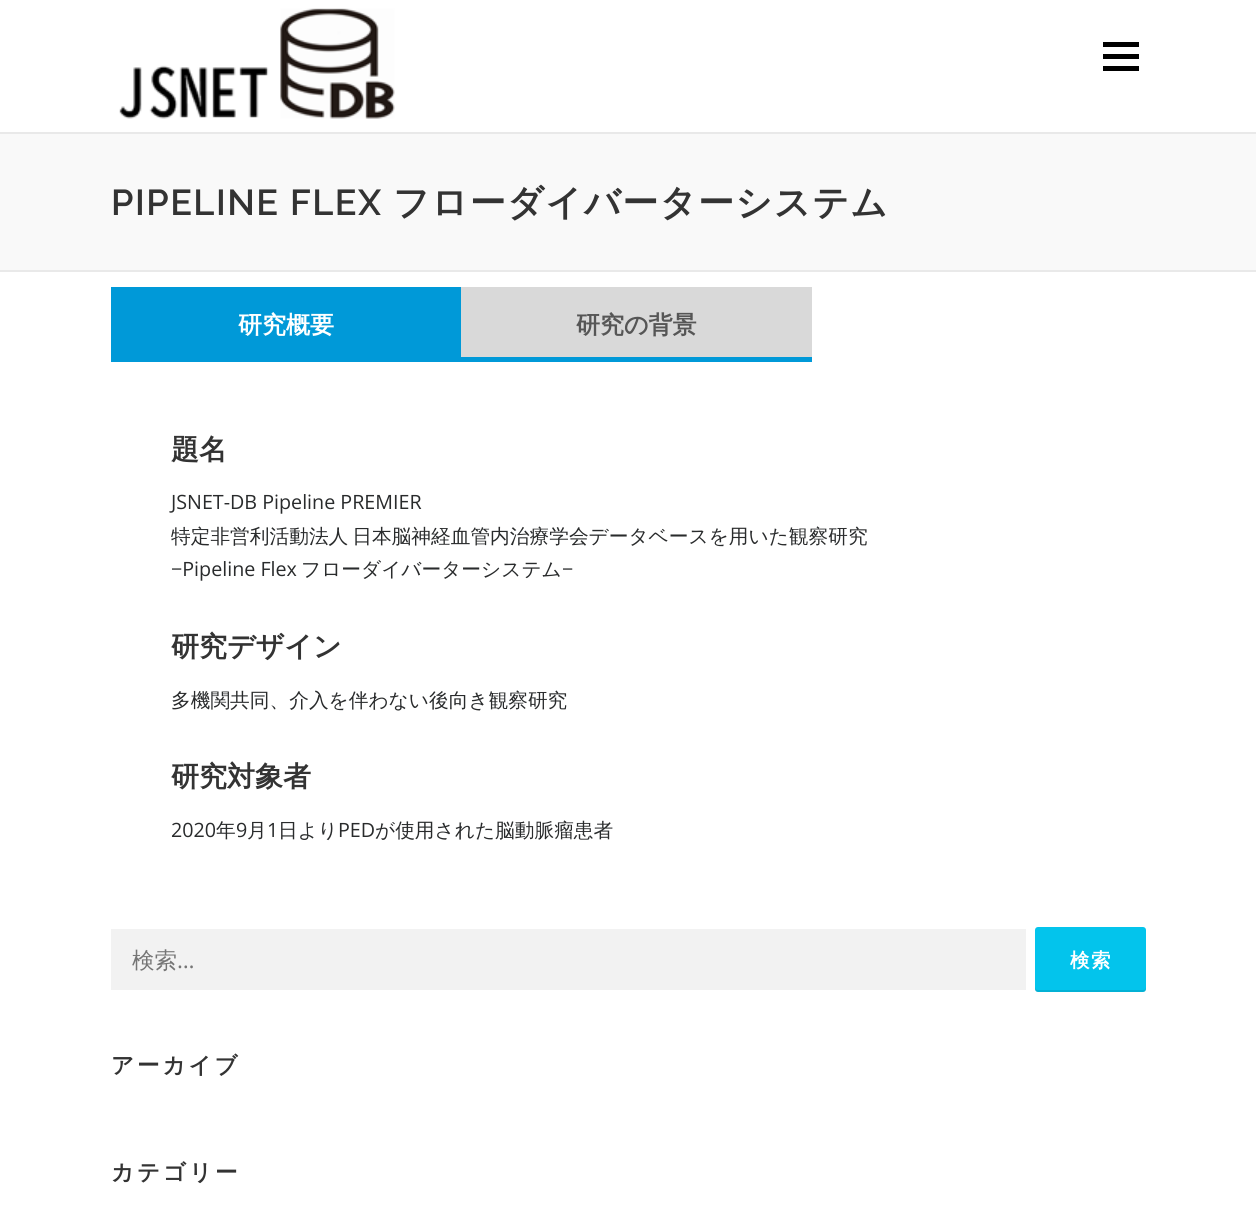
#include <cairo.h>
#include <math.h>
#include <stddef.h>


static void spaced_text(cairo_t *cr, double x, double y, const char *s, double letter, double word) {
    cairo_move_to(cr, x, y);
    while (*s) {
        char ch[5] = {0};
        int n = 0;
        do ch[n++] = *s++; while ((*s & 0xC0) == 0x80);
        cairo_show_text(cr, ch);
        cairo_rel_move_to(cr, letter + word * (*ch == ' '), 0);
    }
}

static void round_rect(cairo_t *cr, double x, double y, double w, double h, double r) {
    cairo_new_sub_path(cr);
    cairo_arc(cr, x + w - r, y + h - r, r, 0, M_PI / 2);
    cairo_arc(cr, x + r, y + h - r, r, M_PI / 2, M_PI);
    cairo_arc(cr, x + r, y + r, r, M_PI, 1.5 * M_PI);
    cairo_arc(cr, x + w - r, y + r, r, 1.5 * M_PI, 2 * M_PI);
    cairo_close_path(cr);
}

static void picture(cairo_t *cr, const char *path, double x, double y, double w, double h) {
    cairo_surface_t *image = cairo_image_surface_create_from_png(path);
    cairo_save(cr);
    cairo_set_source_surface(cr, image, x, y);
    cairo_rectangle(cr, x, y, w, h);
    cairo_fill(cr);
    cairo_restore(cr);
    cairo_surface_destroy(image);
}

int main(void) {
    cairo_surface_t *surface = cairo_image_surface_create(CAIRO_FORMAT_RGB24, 1256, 1232);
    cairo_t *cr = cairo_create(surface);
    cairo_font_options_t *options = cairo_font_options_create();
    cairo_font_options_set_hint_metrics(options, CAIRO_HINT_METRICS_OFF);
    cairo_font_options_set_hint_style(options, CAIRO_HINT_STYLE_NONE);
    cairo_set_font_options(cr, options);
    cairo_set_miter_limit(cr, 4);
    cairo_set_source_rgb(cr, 1, 1, 1);
    cairo_paint(cr);
    picture(cr, "img1.png", 119, 8, 276, 111);
    cairo_set_source_rgb(cr, 0, 0, 0);
    cairo_rectangle(cr, 1103, 54, 36, 5);
    cairo_fill(cr);
    cairo_rectangle(cr, 1103, 42, 36, 5);
    cairo_fill(cr);
    cairo_rectangle(cr, 1103, 66, 36, 5);
    cairo_fill(cr);
    cairo_set_source_rgb(cr, 0.973, 0.976, 0.976);
    cairo_rectangle(cr, 0, 134, 1256, 136);
    cairo_fill(cr);
    cairo_set_source_rgb(cr, 0.914, 0.914, 0.914);
    cairo_rectangle(cr, 0, 132, 1256, 2);
    cairo_fill(cr);
    cairo_rectangle(cr, 0, 270, 1256, 2);
    cairo_fill(cr);
    cairo_select_font_face(cr, "Raleway SemiBold", CAIRO_FONT_SLANT_NORMAL, CAIRO_FONT_WEIGHT_NORMAL);
    cairo_set_font_size(cr, 36);
    cairo_set_source_rgb(cr, 0.2, 0.2, 0.2);
    spaced_text(cr, 111, 215, "PIPELINE FLEX", 1.5, 0);
    cairo_select_font_face(cr, "WenQuanYi Zen Hei", CAIRO_FONT_SLANT_NORMAL, CAIRO_FONT_WEIGHT_BOLD);
    spaced_text(cr, 393, 215, "フローダイバーターシステム", 1.5, 0);
    cairo_set_source_rgb(cr, 0, 0.6, 0.847);
    cairo_rectangle(cr, 111, 287, 350, 75);
    cairo_fill(cr);
    cairo_set_font_size(cr, 24);
    cairo_set_source_rgb(cr, 1, 1, 1);
    cairo_move_to(cr, 238, 333);
    cairo_show_text(cr, "研究概要");
    cairo_set_source_rgb(cr, 0.851, 0.851, 0.851);
    cairo_rectangle(cr, 461, 287, 351, 70);
    cairo_fill(cr);
    cairo_set_source_rgb(cr, 0, 0.6, 0.847);
    cairo_rectangle(cr, 461, 357, 351, 5);
    cairo_fill(cr);
    cairo_set_source_rgb(cr, 0.337, 0.337, 0.337);
    cairo_move_to(cr, 576, 333);
    cairo_show_text(cr, "研究の背景");
    cairo_set_font_size(cr, 28);
    cairo_set_source_rgb(cr, 0.2, 0.2, 0.2);
    cairo_move_to(cr, 171, 459);
    cairo_show_text(cr, "題名");
    cairo_select_font_face(cr, "Open Sans", CAIRO_FONT_SLANT_NORMAL, CAIRO_FONT_WEIGHT_NORMAL);
    cairo_set_font_size(cr, 19.7);
    cairo_set_source_rgb(cr, 0.161, 0.169, 0.173);
    cairo_move_to(cr, 171, 509);
    cairo_show_text(cr, "JSNET-DB Pipeline PREMIER");
    cairo_select_font_face(cr, "WenQuanYi Zen Hei Medium", CAIRO_FONT_SLANT_NORMAL, CAIRO_FONT_WEIGHT_NORMAL);
    spaced_text(cr, 171, 543, "特定非営利活動法人 日本脳神経血管内治療学会データベースを用いた観察研究", 0, -2);
    cairo_select_font_face(cr, "Open Sans", CAIRO_FONT_SLANT_NORMAL, CAIRO_FONT_WEIGHT_NORMAL);
    cairo_move_to(cr, 171, 576);
    cairo_show_text(cr, "−Pipeline Flex");
    cairo_select_font_face(cr, "WenQuanYi Zen Hei Medium", CAIRO_FONT_SLANT_NORMAL, CAIRO_FONT_WEIGHT_NORMAL);
    cairo_move_to(cr, 301, 576);
    cairo_show_text(cr, "フローダイバーターシステム");
    cairo_select_font_face(cr, "Open Sans", CAIRO_FONT_SLANT_NORMAL, CAIRO_FONT_WEIGHT_NORMAL);
    cairo_move_to(cr, 562, 576);
    cairo_show_text(cr, "−");
    cairo_select_font_face(cr, "WenQuanYi Zen Hei", CAIRO_FONT_SLANT_NORMAL, CAIRO_FONT_WEIGHT_BOLD);
    cairo_set_font_size(cr, 28);
    cairo_set_source_rgb(cr, 0.2, 0.2, 0.2);
    cairo_move_to(cr, 171, 656);
    cairo_show_text(cr, "研究デザイン");
    cairo_select_font_face(cr, "WenQuanYi Zen Hei Medium", CAIRO_FONT_SLANT_NORMAL, CAIRO_FONT_WEIGHT_NORMAL);
    cairo_set_font_size(cr, 19.7);
    cairo_set_source_rgb(cr, 0.161, 0.169, 0.173);
    cairo_move_to(cr, 171, 707);
    cairo_show_text(cr, "多機関共同、介入を伴わない後向き観察研究");
    cairo_select_font_face(cr, "WenQuanYi Zen Hei", CAIRO_FONT_SLANT_NORMAL, CAIRO_FONT_WEIGHT_BOLD);
    cairo_set_font_size(cr, 28);
    cairo_set_source_rgb(cr, 0.2, 0.2, 0.2);
    cairo_move_to(cr, 171, 786);
    cairo_show_text(cr, "研究対象者");
    cairo_select_font_face(cr, "Open Sans", CAIRO_FONT_SLANT_NORMAL, CAIRO_FONT_WEIGHT_NORMAL);
    cairo_set_font_size(cr, 19.7);
    cairo_set_source_rgb(cr, 0.161, 0.169, 0.173);
    cairo_move_to(cr, 171, 837);
    cairo_show_text(cr, "2020");
    cairo_select_font_face(cr, "WenQuanYi Zen Hei Medium", CAIRO_FONT_SLANT_NORMAL, CAIRO_FONT_WEIGHT_NORMAL);
    cairo_move_to(cr, 216, 837);
    cairo_show_text(cr, "年");
    cairo_select_font_face(cr, "Open Sans", CAIRO_FONT_SLANT_NORMAL, CAIRO_FONT_WEIGHT_NORMAL);
    cairo_move_to(cr, 236, 837);
    cairo_show_text(cr, "9");
    cairo_select_font_face(cr, "WenQuanYi Zen Hei Medium", CAIRO_FONT_SLANT_NORMAL, CAIRO_FONT_WEIGHT_NORMAL);
    cairo_move_to(cr, 247, 837);
    cairo_show_text(cr, "月");
    cairo_select_font_face(cr, "Open Sans", CAIRO_FONT_SLANT_NORMAL, CAIRO_FONT_WEIGHT_NORMAL);
    cairo_move_to(cr, 267, 837);
    cairo_show_text(cr, "1");
    cairo_select_font_face(cr, "WenQuanYi Zen Hei Medium", CAIRO_FONT_SLANT_NORMAL, CAIRO_FONT_WEIGHT_NORMAL);
    cairo_move_to(cr, 278, 837);
    cairo_show_text(cr, "日より");
    cairo_select_font_face(cr, "Open Sans", CAIRO_FONT_SLANT_NORMAL, CAIRO_FONT_WEIGHT_NORMAL);
    cairo_move_to(cr, 338, 837);
    cairo_show_text(cr, "PED");
    cairo_select_font_face(cr, "WenQuanYi Zen Hei Medium", CAIRO_FONT_SLANT_NORMAL, CAIRO_FONT_WEIGHT_NORMAL);
    cairo_move_to(cr, 375, 837);
    cairo_show_text(cr, "が使用された脳動脈瘤患者");
    cairo_set_source_rgb(cr, 0.949, 0.949, 0.949);
    cairo_rectangle(cr, 111, 929, 915, 61);
    cairo_fill(cr);
    cairo_set_font_size(cr, 22.5);
    cairo_set_source_rgb(cr, 0.459, 0.459, 0.459);
    cairo_move_to(cr, 132, 968);
    cairo_show_text(cr, "検索");
    cairo_select_font_face(cr, "Open Sans", CAIRO_FONT_SLANT_NORMAL, CAIRO_FONT_WEIGHT_NORMAL);
    cairo_move_to(cr, 177, 968);
    cairo_show_text(cr, "…");
    cairo_set_source_rgb(cr, 0.012, 0.769, 0.922);
    round_rect(cr, 1035, 927, 111, 65, 3);
    cairo_fill(cr);
    cairo_set_source_rgba(cr, 0, 0, 0, 0.1);
    cairo_new_path(cr);
    cairo_move_to(cr, 1035, 987);
    cairo_line_to(cr, 1035, 989);
    cairo_curve_to(cr, 1035, 991, 1036, 992, 1038, 992);
    cairo_line_to(cr, 1143, 992);
    cairo_curve_to(cr, 1145, 992, 1146, 991, 1146, 989);
    cairo_line_to(cr, 1146, 987);
    cairo_curve_to(cr, 1146, 989, 1145, 990, 1143, 990);
    cairo_line_to(cr, 1038, 990);
    cairo_curve_to(cr, 1036, 990, 1035, 989, 1035, 987);
    cairo_close_path(cr);
    cairo_fill(cr);
    cairo_select_font_face(cr, "WenQuanYi Zen Hei", CAIRO_FONT_SLANT_NORMAL, CAIRO_FONT_WEIGHT_BOLD);
    cairo_set_font_size(cr, 19.5);
    cairo_set_source_rgb(cr, 1, 1, 1);
    spaced_text(cr, 1070, 967, "検索", 1.5, 0);
    cairo_set_font_size(cr, 22.5);
    cairo_set_source_rgb(cr, 0.2, 0.2, 0.2);
    spaced_text(cr, 111, 1073, "アーカイブ", 3, 0);
    spaced_text(cr, 111, 1180, "カテゴリー", 3, 0);
    cairo_surface_write_to_png(surface, "page.png");
    cairo_font_options_destroy(options);
    cairo_destroy(cr);
    cairo_surface_destroy(surface);
    return 0;
}
